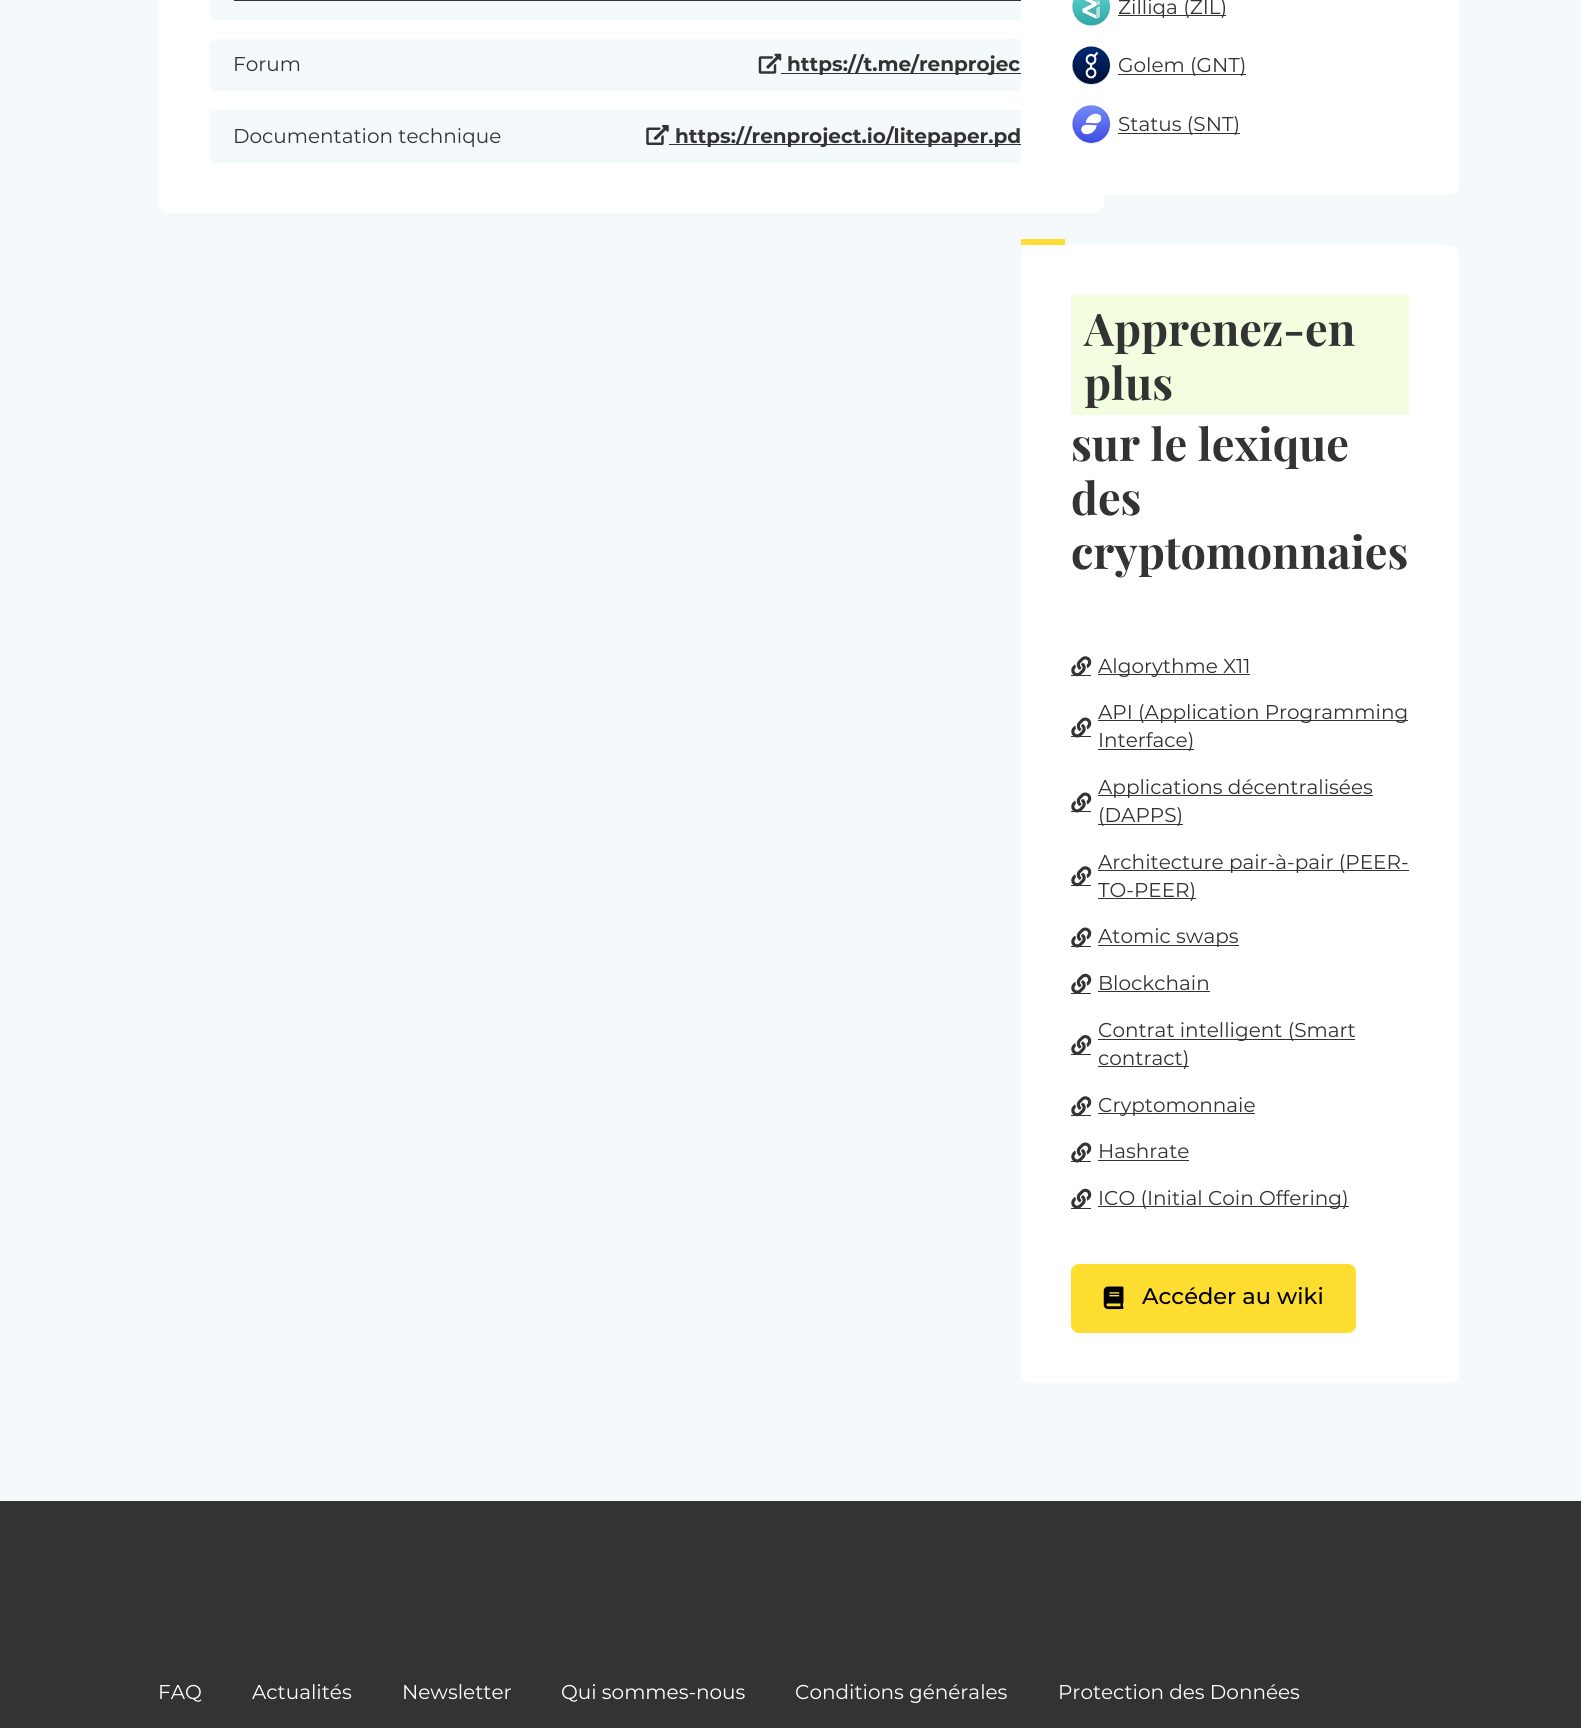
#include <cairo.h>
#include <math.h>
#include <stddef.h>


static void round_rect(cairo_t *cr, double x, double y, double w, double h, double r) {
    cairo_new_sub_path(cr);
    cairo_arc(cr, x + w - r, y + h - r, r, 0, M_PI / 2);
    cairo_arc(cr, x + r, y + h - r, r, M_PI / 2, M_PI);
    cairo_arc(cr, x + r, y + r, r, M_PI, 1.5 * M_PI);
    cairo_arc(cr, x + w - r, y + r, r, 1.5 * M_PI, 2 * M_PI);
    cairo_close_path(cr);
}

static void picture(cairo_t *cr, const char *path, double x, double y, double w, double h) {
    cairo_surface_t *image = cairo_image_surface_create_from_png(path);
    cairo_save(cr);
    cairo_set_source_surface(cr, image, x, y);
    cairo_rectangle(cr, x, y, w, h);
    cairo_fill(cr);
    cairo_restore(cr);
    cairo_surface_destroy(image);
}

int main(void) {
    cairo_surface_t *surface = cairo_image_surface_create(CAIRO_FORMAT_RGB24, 1581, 1728);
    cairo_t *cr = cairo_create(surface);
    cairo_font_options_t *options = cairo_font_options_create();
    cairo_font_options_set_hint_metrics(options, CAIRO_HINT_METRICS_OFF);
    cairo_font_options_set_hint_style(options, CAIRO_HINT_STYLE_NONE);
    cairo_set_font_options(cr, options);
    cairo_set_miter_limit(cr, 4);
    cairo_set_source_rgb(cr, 0.957, 0.976, 0.984);
    cairo_paint(cr);
    cairo_set_source_rgb(cr, 1, 1, 1);
    round_rect(cr, 159, -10, 945, 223, 10);
    cairo_fill(cr);
    cairo_set_source_rgb(cr, 0.957, 0.976, 0.984);
    round_rect(cr, 209, -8, 845, 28, 8);
    cairo_fill(cr);
    cairo_set_source_rgb(cr, 0.2, 0.2, 0.2);
    cairo_rectangle(cr, 234, 0, 795, 1);
    cairo_fill(cr);
    cairo_set_source_rgb(cr, 0.957, 0.976, 0.984);
    round_rect(cr, 209, 39, 845, 52, 8);
    cairo_fill(cr);
    cairo_select_font_face(cr, "Montserrat", CAIRO_FONT_SLANT_NORMAL, CAIRO_FONT_WEIGHT_NORMAL);
    cairo_set_font_size(cr, 20);
    cairo_set_source_rgb(cr, 0.2, 0.2, 0.2);
    cairo_move_to(cr, 233, 71);
    cairo_show_text(cr, "Forum");
    picture(cr, "img1.png", 758, 53, 24, 21);
    cairo_rectangle(cr, 781, 73, 248, 1);
    cairo_fill(cr);
    cairo_select_font_face(cr, "Montserrat", CAIRO_FONT_SLANT_NORMAL, CAIRO_FONT_WEIGHT_BOLD);
    cairo_move_to(cr, 787, 71);
    cairo_show_text(cr, "https://t.me/renprojec");
    cairo_set_source_rgb(cr, 0.957, 0.976, 0.984);
    round_rect(cr, 209, 110, 845, 53, 8);
    cairo_fill(cr);
    cairo_select_font_face(cr, "Montserrat", CAIRO_FONT_SLANT_NORMAL, CAIRO_FONT_WEIGHT_NORMAL);
    cairo_set_source_rgb(cr, 0.2, 0.2, 0.2);
    cairo_move_to(cr, 233, 143);
    cairo_show_text(cr, "Documentation technique");
    picture(cr, "img2.png", 646, 125, 23, 20);
    cairo_rectangle(cr, 669, 144, 360, 1);
    cairo_fill(cr);
    cairo_select_font_face(cr, "Montserrat", CAIRO_FONT_SLANT_NORMAL, CAIRO_FONT_WEIGHT_BOLD);
    cairo_move_to(cr, 675, 143);
    cairo_show_text(cr, "https://renproject.io/litepaper.pd");
    cairo_set_source_rgb(cr, 1, 1, 1);
    round_rect(cr, 1021, -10, 438, 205, 10);
    cairo_fill(cr);
    picture(cr, "img3.png", 1072, 0, 39, 27);
    cairo_set_source_rgb(cr, 0.2, 0.2, 0.2);
    cairo_rectangle(cr, 1118, 15, 108, 1);
    cairo_fill(cr);
    cairo_select_font_face(cr, "Montserrat", CAIRO_FONT_SLANT_NORMAL, CAIRO_FONT_WEIGHT_NORMAL);
    cairo_move_to(cr, 1118, 14);
    cairo_show_text(cr, "Zilliqa (ZIL)");
    picture(cr, "img4.png", 1072, 46, 39, 39);
    cairo_rectangle(cr, 1118, 74, 128, 1);
    cairo_fill(cr);
    cairo_move_to(cr, 1118, 72);
    cairo_show_text(cr, "Golem (GNT)");
    picture(cr, "img5.png", 1072, 105, 39, 39);
    cairo_rectangle(cr, 1118, 133, 122, 1);
    cairo_fill(cr);
    cairo_move_to(cr, 1118, 131);
    cairo_show_text(cr, "Status (SNT)");
    cairo_set_source_rgb(cr, 1, 1, 1);
    round_rect(cr, 1021, 245, 438, 1138, 10);
    cairo_fill(cr);
    cairo_set_source_rgb(cr, 1, 0.867, 0.192);
    cairo_rectangle(cr, 1021, 239, 44, 6);
    cairo_fill(cr);
    cairo_set_source_rgb(cr, 0.953, 0.992, 0.878);
    cairo_rectangle(cr, 1071, 295, 338, 120);
    cairo_fill(cr);
    cairo_select_font_face(cr, "Playfair Display", CAIRO_FONT_SLANT_NORMAL, CAIRO_FONT_WEIGHT_BOLD);
    cairo_set_font_size(cr, 45);
    cairo_set_source_rgb(cr, 0.2, 0.2, 0.2);
    cairo_move_to(cr, 1084, 346);
    cairo_show_text(cr, "Apprenez-en");
    cairo_move_to(cr, 1084, 400);
    cairo_show_text(cr, "plus");
    cairo_move_to(cr, 1071, 461);
    cairo_show_text(cr, "sur le lexique");
    cairo_move_to(cr, 1071, 515);
    cairo_show_text(cr, "des");
    cairo_move_to(cr, 1071, 569);
    cairo_show_text(cr, "cryptomonnaies");
    cairo_rectangle(cr, 1071, 675, 20, 1);
    cairo_fill(cr);
    picture(cr, "img6.png", 1071, 656, 21, 21);
    cairo_rectangle(cr, 1098, 674, 152, 1);
    cairo_fill(cr);
    cairo_select_font_face(cr, "Montserrat", CAIRO_FONT_SLANT_NORMAL, CAIRO_FONT_WEIGHT_NORMAL);
    cairo_set_font_size(cr, 20);
    cairo_move_to(cr, 1098, 673);
    cairo_show_text(cr, "Algorythme X11");
    cairo_rectangle(cr, 1071, 736, 20, 1);
    cairo_fill(cr);
    picture(cr, "img7.png", 1071, 717, 21, 21);
    cairo_rectangle(cr, 1098, 720, 310, 1);
    cairo_fill(cr);
    cairo_move_to(cr, 1098, 719);
    cairo_show_text(cr, "API (Application Programming");
    cairo_rectangle(cr, 1098, 749, 96, 1);
    cairo_fill(cr);
    cairo_move_to(cr, 1098, 747);
    cairo_show_text(cr, "Interface)");
    cairo_rectangle(cr, 1071, 811, 20, 1);
    cairo_fill(cr);
    picture(cr, "img7.png", 1071, 792, 21, 21);
    cairo_rectangle(cr, 1098, 795, 275, 1);
    cairo_fill(cr);
    cairo_move_to(cr, 1098, 794);
    cairo_show_text(cr, "Applications décentralisées");
    cairo_rectangle(cr, 1098, 824, 85, 1);
    cairo_fill(cr);
    cairo_move_to(cr, 1098, 822);
    cairo_show_text(cr, "(DAPPS)");
    cairo_rectangle(cr, 1071, 885, 20, 1);
    cairo_fill(cr);
    picture(cr, "img6.png", 1071, 866, 21, 21);
    cairo_rectangle(cr, 1098, 870, 311, 1);
    cairo_fill(cr);
    cairo_move_to(cr, 1098, 869);
    cairo_show_text(cr, "Architecture pair-à-pair (PEER-");
    cairo_rectangle(cr, 1098, 898, 98, 1);
    cairo_fill(cr);
    cairo_move_to(cr, 1098, 897);
    cairo_show_text(cr, "TO-PEER)");
    cairo_rectangle(cr, 1071, 946, 20, 1);
    cairo_fill(cr);
    picture(cr, "img7.png", 1071, 927, 21, 21);
    cairo_rectangle(cr, 1098, 945, 141, 1);
    cairo_fill(cr);
    cairo_move_to(cr, 1098, 943);
    cairo_show_text(cr, "Atomic swaps");
    picture(cr, "img8.png", 1071, 973, 21, 20);
    cairo_rectangle(cr, 1071, 993, 20, 1);
    cairo_fill(cr);
    cairo_move_to(cr, 1098, 990);
    cairo_show_text(cr, "Blockchain");
    cairo_rectangle(cr, 1098, 991, 112, 1);
    cairo_fill(cr);
    picture(cr, "img9.png", 1071, 1035, 21, 19);
    cairo_rectangle(cr, 1071, 1054, 20, 1);
    cairo_fill(cr);
    cairo_rectangle(cr, 1098, 1039, 257, 1);
    cairo_fill(cr);
    cairo_move_to(cr, 1098, 1037);
    cairo_show_text(cr, "Contrat intelligent (Smart");
    cairo_rectangle(cr, 1098, 1066, 91, 1);
    cairo_fill(cr);
    cairo_move_to(cr, 1098, 1065);
    cairo_show_text(cr, "contract)");
    cairo_rectangle(cr, 1071, 1115, 20, 1);
    cairo_fill(cr);
    picture(cr, "img6.png", 1071, 1096, 21, 21);
    cairo_rectangle(cr, 1098, 1113, 157, 1);
    cairo_fill(cr);
    cairo_move_to(cr, 1098, 1112);
    cairo_show_text(cr, "Cryptomonnaie");
    cairo_rectangle(cr, 1071, 1161, 20, 1);
    cairo_fill(cr);
    picture(cr, "img7.png", 1071, 1142, 21, 21);
    cairo_move_to(cr, 1098, 1158);
    cairo_show_text(cr, "Hashrate");
    cairo_rectangle(cr, 1098, 1160, 91, 1);
    cairo_fill(cr);
    picture(cr, "img8.png", 1071, 1188, 21, 20);
    cairo_rectangle(cr, 1071, 1208, 20, 1);
    cairo_fill(cr);
    cairo_rectangle(cr, 1098, 1206, 251, 1);
    cairo_fill(cr);
    cairo_move_to(cr, 1098, 1205);
    cairo_show_text(cr, "ICO (Initial Coin Offering)");
    cairo_set_source_rgb(cr, 0.996, 0.867, 0.192);
    round_rect(cr, 1071, 1264, 285, 69, 8);
    cairo_fill(cr);
    picture(cr, "img10.png", 1103, 1286, 21, 24);
    cairo_select_font_face(cr, "Montserrat Medium", CAIRO_FONT_SLANT_NORMAL, CAIRO_FONT_WEIGHT_NORMAL);
    cairo_set_font_size(cr, 22.5);
    cairo_set_source_rgb(cr, 0, 0, 0);
    cairo_move_to(cr, 1142, 1304);
    cairo_show_text(cr, "Accéder au wiki");
    cairo_set_source_rgb(cr, 0.2, 0.2, 0.2);
    cairo_rectangle(cr, 0, 1501, 1581, 227);
    cairo_fill(cr);
    cairo_select_font_face(cr, "Montserrat", CAIRO_FONT_SLANT_NORMAL, CAIRO_FONT_WEIGHT_NORMAL);
    cairo_set_font_size(cr, 20);
    cairo_set_source_rgb(cr, 1, 1, 1);
    cairo_move_to(cr, 158, 1699);
    cairo_show_text(cr, "FAQ");
    cairo_move_to(cr, 252, 1699);
    cairo_show_text(cr, "Actualités");
    cairo_move_to(cr, 402, 1699);
    cairo_show_text(cr, "Newsletter");
    cairo_move_to(cr, 561, 1699);
    cairo_show_text(cr, "Qui sommes-nous");
    cairo_move_to(cr, 795, 1699);
    cairo_show_text(cr, "Conditions générales");
    cairo_move_to(cr, 1058, 1699);
    cairo_show_text(cr, "Protection des Données");
    cairo_surface_write_to_png(surface, "page.png");
    cairo_font_options_destroy(options);
    cairo_destroy(cr);
    cairo_surface_destroy(surface);
    return 0;
}
